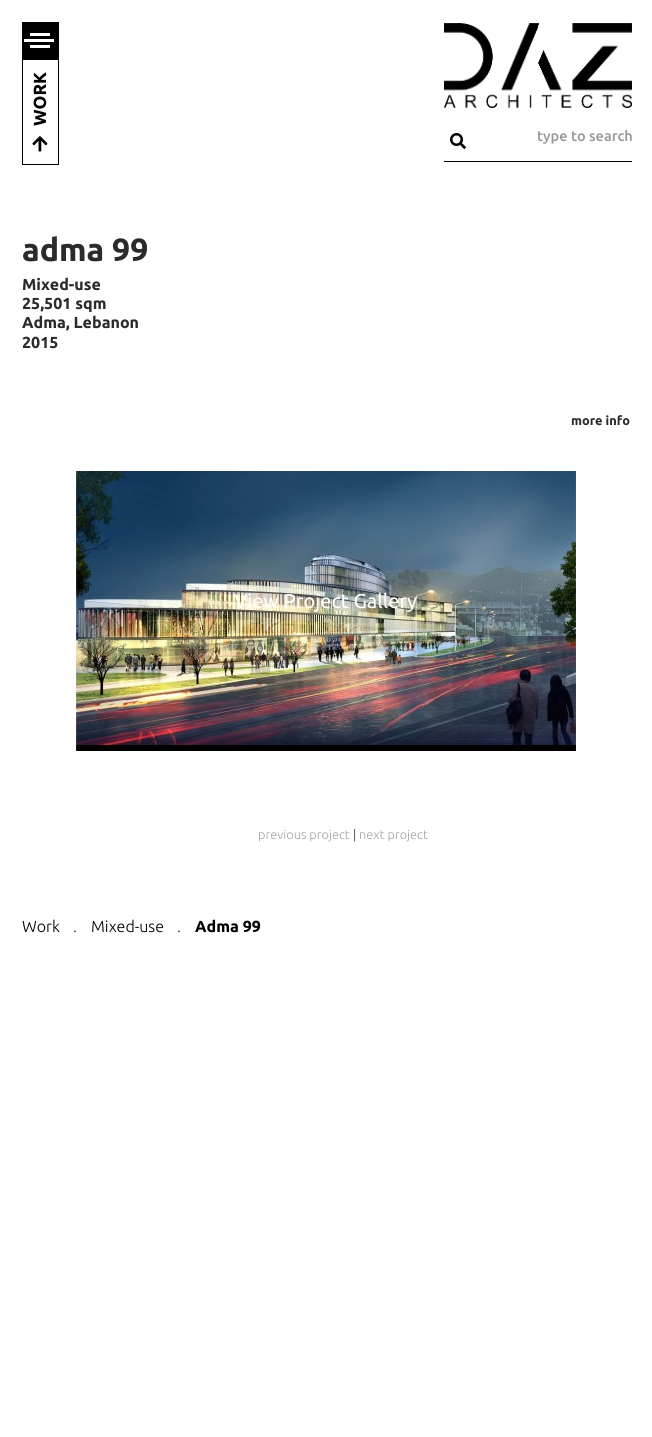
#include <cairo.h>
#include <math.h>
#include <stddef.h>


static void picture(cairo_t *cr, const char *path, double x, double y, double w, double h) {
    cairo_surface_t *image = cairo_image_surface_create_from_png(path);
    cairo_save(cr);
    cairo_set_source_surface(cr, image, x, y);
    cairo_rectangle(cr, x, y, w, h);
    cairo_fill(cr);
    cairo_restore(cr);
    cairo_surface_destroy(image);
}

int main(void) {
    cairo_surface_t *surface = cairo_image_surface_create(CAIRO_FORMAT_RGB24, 652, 1437);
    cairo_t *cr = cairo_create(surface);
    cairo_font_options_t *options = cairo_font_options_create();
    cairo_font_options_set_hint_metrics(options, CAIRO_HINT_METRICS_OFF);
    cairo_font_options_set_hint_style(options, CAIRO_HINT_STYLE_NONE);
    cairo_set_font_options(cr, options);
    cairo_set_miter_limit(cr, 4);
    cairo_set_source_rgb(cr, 1, 1, 1);
    cairo_paint(cr);
    cairo_set_source_rgb(cr, 0, 0, 0);
    cairo_rectangle(cr, 22, 22, 37, 37);
    cairo_fill(cr);
    cairo_set_source_rgb(cr, 1, 1, 1);
    cairo_rectangle(cr, 30, 33, 20, 3);
    cairo_fill(cr);
    cairo_rectangle(cr, 24, 39, 30, 3);
    cairo_fill(cr);
    cairo_rectangle(cr, 30, 45, 20, 3);
    cairo_fill(cr);
    cairo_rectangle(cr, 22.5, 59.5, 36, 105);
    cairo_set_source_rgb(cr, 0, 0, 0);
    cairo_set_line_width(cr, 1);
    cairo_stroke(cr);
    cairo_select_font_face(cr, "Ubuntu", CAIRO_FONT_SLANT_NORMAL, CAIRO_FONT_WEIGHT_BOLD);
    cairo_set_font_size(cr, 17.5);
    cairo_save(cr);
    cairo_translate(cr, 46, 126);
    cairo_rotate(cr, -90 * M_PI / 180);
    cairo_move_to(cr, 0, 0);
    cairo_show_text(cr, "WORK");
    cairo_restore(cr);
    picture(cr, "img1.png", 32, 136, 16, 16);
    picture(cr, "img2.png", 444, 23, 188, 85);
    picture(cr, "img3.png", 450, 133, 16, 16);
    cairo_rectangle(cr, 444, 161, 188, 1);
    cairo_fill(cr);
    cairo_select_font_face(cr, "Ubuntu Medium", CAIRO_FONT_SLANT_NORMAL, CAIRO_FONT_WEIGHT_NORMAL);
    cairo_set_font_size(cr, 14.5);
    cairo_set_source_rgb(cr, 0.6, 0.6, 0.6);
    cairo_move_to(cr, 537, 141);
    cairo_show_text(cr, "type to search");
    cairo_select_font_face(cr, "Ubuntu", CAIRO_FONT_SLANT_NORMAL, CAIRO_FONT_WEIGHT_BOLD);
    cairo_set_font_size(cr, 32);
    cairo_set_source_rgb(cr, 0.169, 0.169, 0.169);
    cairo_move_to(cr, 22, 261);
    cairo_show_text(cr, "adma 99");
    cairo_set_font_size(cr, 16);
    cairo_move_to(cr, 22, 290);
    cairo_show_text(cr, "Mixed-use");
    cairo_move_to(cr, 22, 309);
    cairo_show_text(cr, "25,501 sqm");
    cairo_move_to(cr, 22, 328);
    cairo_show_text(cr, "Adma, Lebanon");
    cairo_move_to(cr, 22, 348);
    cairo_show_text(cr, "2015");
    cairo_set_font_size(cr, 12.75);
    cairo_move_to(cr, 571, 425);
    cairo_show_text(cr, "more info");
    picture(cr, "img4.png", 76, 471, 500, 280);
    cairo_select_font_face(cr, "Ubuntu", CAIRO_FONT_SLANT_NORMAL, CAIRO_FONT_WEIGHT_NORMAL);
    cairo_set_font_size(cr, 20);
    cairo_set_source_rgb(cr, 1, 1, 1);
    cairo_move_to(cr, 234, 608);
    cairo_show_text(cr, "View Project Gallery");
    cairo_select_font_face(cr, "Ubuntu Light", CAIRO_FONT_SLANT_NORMAL, CAIRO_FONT_WEIGHT_NORMAL);
    cairo_set_font_size(cr, 12.75);
    cairo_set_source_rgb(cr, 0.639, 0.635, 0.635);
    cairo_move_to(cr, 258, 839);
    cairo_show_text(cr, "previous project");
    cairo_set_source_rgb(cr, 0.169, 0.169, 0.169);
    cairo_move_to(cr, 353, 839);
    cairo_show_text(cr, "|");
    cairo_set_source_rgb(cr, 0.639, 0.635, 0.635);
    cairo_move_to(cr, 359, 839);
    cairo_show_text(cr, "next project");
    cairo_set_font_size(cr, 16);
    cairo_set_source_rgb(cr, 0, 0, 0);
    cairo_move_to(cr, 22, 932);
    cairo_show_text(cr, "Work");
    cairo_set_source_rgb(cr, 0.169, 0.169, 0.169);
    cairo_move_to(cr, 73, 932);
    cairo_show_text(cr, ".");
    cairo_set_source_rgb(cr, 0, 0, 0);
    cairo_move_to(cr, 91, 932);
    cairo_show_text(cr, "Mixed-use");
    cairo_set_source_rgb(cr, 0.169, 0.169, 0.169);
    cairo_move_to(cr, 177, 932);
    cairo_show_text(cr, ".");
    cairo_select_font_face(cr, "Ubuntu", CAIRO_FONT_SLANT_NORMAL, CAIRO_FONT_WEIGHT_BOLD);
    cairo_set_source_rgb(cr, 0, 0, 0);
    cairo_move_to(cr, 195, 932);
    cairo_show_text(cr, "Adma 99");
    cairo_surface_write_to_png(surface, "page.png");
    cairo_font_options_destroy(options);
    cairo_destroy(cr);
    cairo_surface_destroy(surface);
    return 0;
}
